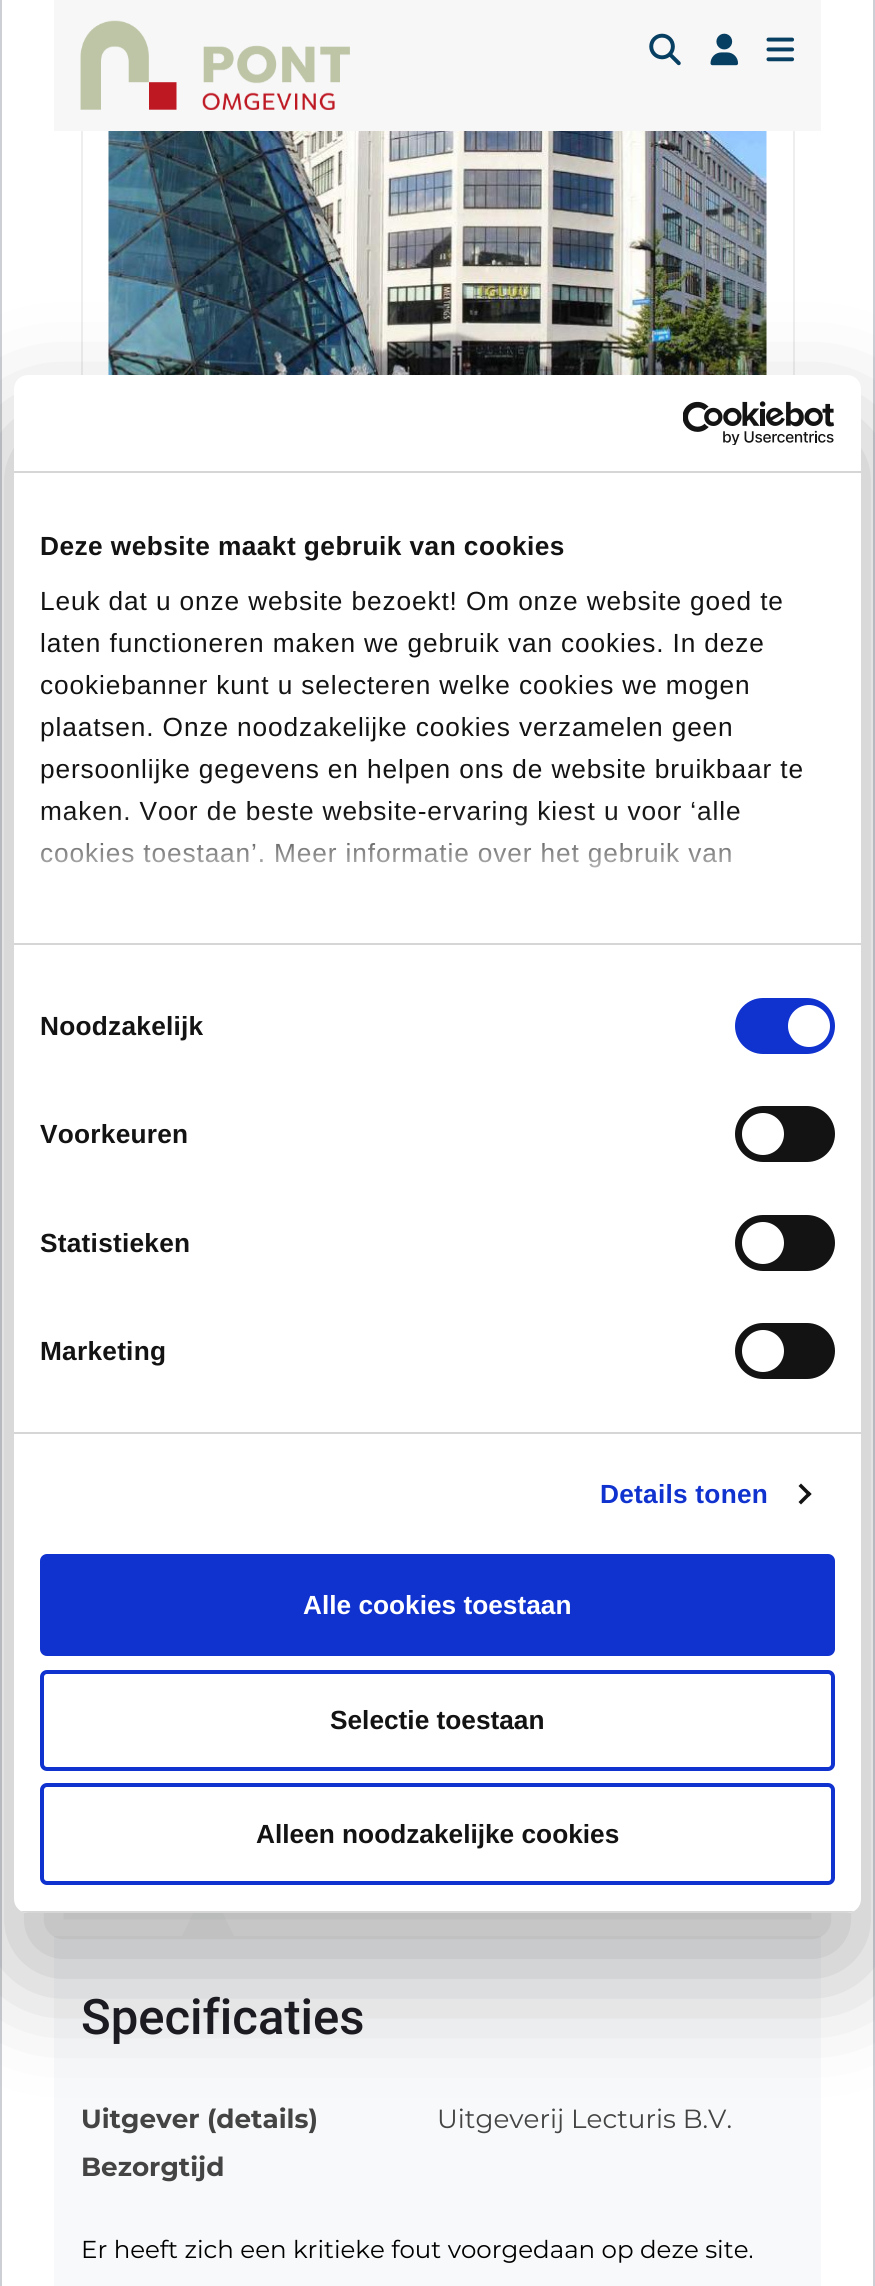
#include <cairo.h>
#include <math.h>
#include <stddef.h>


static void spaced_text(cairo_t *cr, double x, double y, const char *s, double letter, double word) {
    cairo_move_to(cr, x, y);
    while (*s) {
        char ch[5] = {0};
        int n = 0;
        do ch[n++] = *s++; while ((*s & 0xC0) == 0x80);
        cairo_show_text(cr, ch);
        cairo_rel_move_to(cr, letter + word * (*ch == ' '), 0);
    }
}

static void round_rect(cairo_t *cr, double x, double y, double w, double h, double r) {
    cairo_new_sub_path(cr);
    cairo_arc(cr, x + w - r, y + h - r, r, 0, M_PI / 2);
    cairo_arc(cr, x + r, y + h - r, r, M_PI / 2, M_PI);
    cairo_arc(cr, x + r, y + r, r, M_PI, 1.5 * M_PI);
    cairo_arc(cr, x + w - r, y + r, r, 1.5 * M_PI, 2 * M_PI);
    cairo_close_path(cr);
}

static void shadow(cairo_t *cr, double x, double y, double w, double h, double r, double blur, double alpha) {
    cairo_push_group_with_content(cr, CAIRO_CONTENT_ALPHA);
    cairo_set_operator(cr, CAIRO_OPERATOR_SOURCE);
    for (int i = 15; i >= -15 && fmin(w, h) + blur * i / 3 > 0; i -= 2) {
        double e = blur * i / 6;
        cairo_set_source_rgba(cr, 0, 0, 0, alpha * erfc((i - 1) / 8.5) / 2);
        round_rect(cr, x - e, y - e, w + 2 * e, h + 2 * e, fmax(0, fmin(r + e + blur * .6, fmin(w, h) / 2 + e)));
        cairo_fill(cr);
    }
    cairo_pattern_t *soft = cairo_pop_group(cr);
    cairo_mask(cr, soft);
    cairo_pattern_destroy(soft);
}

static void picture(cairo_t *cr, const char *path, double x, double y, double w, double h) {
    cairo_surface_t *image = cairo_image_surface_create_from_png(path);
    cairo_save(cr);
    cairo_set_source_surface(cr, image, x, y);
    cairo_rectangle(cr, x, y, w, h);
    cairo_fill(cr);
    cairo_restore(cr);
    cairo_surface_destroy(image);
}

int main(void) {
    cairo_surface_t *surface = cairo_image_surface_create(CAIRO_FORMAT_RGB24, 875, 2286);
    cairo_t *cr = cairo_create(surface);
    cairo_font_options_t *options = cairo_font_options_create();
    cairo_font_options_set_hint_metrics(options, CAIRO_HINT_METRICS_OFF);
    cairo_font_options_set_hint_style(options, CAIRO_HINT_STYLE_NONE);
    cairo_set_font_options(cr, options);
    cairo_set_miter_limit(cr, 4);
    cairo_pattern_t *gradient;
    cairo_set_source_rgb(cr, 1, 1, 1);
    cairo_paint(cr);
    cairo_rectangle(cr, 1, -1, 873, 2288);
    cairo_set_source_rgb(cr, 0.8, 0.816, 0.831);
    cairo_stroke(cr);
    cairo_rectangle(cr, 82, -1, 712, 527);
    cairo_set_source_rgb(cr, 0.937, 0.933, 0.933);
    cairo_stroke(cr);
    cairo_set_source_rgb(cr, 0.965, 0.965, 0.965);
    cairo_rectangle(cr, 54, 0, 767, 131);
    cairo_fill(cr);
    picture(cr, "img1.png", 80, 20, 270, 90);
    picture(cr, "img2.png", 649, 33, 32, 33);
    picture(cr, "img3.png", 710, 33, 29, 33);
    picture(cr, "img4.png", 766, 37, 29, 25);
    picture(cr, "img6.png", 108, 131, 659, 244);
    cairo_set_source_rgb(cr, 0.969, 0.976, 0.98);
    cairo_new_path(cr);
    cairo_move_to(cr, 234, 1936);
    cairo_line_to(cr, 182, 1936);
    cairo_line_to(cr, 208, 1883);
    cairo_close_path(cr);
    cairo_fill(cr);
    cairo_rectangle(cr, 54, 1936, 767, 350);
    cairo_fill(cr);
    cairo_set_source_rgb(cr, 0, 0, 0);
    shadow(cr, 14, 431, 847, 1538, 14, 59.5, 0.3);
    cairo_set_source_rgb(cr, 1, 1, 1);
    round_rect(cr, 14, 375, 847, 1538, 14);
    cairo_fill(cr);
    cairo_set_source_rgb(cr, 0.839, 0.839, 0.839);
    cairo_rectangle(cr, 14, 471, 847, 2);
    cairo_fill(cr);
    picture(cr, "img5.png", 683, 401, 152, 44);
    cairo_rectangle(cr, 14, 943, 847, 2);
    cairo_fill(cr);
    cairo_select_font_face(cr, "Liberation Sans", CAIRO_FONT_SLANT_NORMAL, CAIRO_FONT_WEIGHT_BOLD);
    cairo_set_font_size(cr, 26.25);
    cairo_set_source_rgb(cr, 0.078, 0.078, 0.078);
    spaced_text(cr, 40, 555, "Deze website maakt gebruik van cookies", 0.45, 0);
    cairo_select_font_face(cr, "Liberation Sans", CAIRO_FONT_SLANT_NORMAL, CAIRO_FONT_WEIGHT_NORMAL);
    spaced_text(cr, 40, 610, "Leuk dat u onze website bezoekt! Om onze website goed te", 0.88, 0);
    spaced_text(cr, 40, 652, "laten functioneren maken we gebruik van cookies. In deze", 0.88, 0);
    spaced_text(cr, 40, 694, "cookiebanner kunt u selecteren welke cookies we mogen", 0.88, 0);
    spaced_text(cr, 40, 736, "plaatsen. Onze noodzakelijke cookies verzamelen geen", 0.88, 0);
    spaced_text(cr, 40, 778, "persoonlijke gegevens en helpen ons de website bruikbaar te", 0.88, 0);
    spaced_text(cr, 40, 820, "maken. Voor de beste website-ervaring kiest u voor ‘alle", 0.88, 0);
    spaced_text(cr, 40, 862, "cookies toestaan’. Meer informatie over het gebruik van", 0.88, 0);
    gradient = cairo_pattern_create_linear(426, 944, 426, 812);
    cairo_pattern_add_color_stop_rgba(gradient, 0, 1, 1, 1, 1);
    cairo_pattern_add_color_stop_rgba(gradient, 0.5, 1, 1, 1, 0.8);
    cairo_pattern_add_color_stop_rgba(gradient, 1, 1, 1, 1, 0);
    cairo_set_source(cr, gradient);
    cairo_pattern_destroy(gradient);
    cairo_rectangle(cr, 41, 814, 698, 54);
    cairo_fill(cr);
    cairo_set_source_rgb(cr, 0.839, 0.839, 0.839);
    cairo_rectangle(cr, 14, 1432, 847, 2);
    cairo_fill(cr);
    cairo_select_font_face(cr, "Liberation Sans", CAIRO_FONT_SLANT_NORMAL, CAIRO_FONT_WEIGHT_BOLD);
    cairo_set_source_rgb(cr, 0.078, 0.078, 0.078);
    spaced_text(cr, 40, 1035, "Noodzakelijk", 0.25, 0);
    cairo_set_source_rgb(cr, 0.063, 0.196, 0.812);
    round_rect(cr, 735, 998, 100, 56, 28);
    cairo_fill(cr);
    cairo_set_source_rgb(cr, 1, 1, 1);
    cairo_arc(cr, 809, 1026, 21, 0, 2 * M_PI);
    cairo_fill(cr);
    cairo_set_source_rgb(cr, 0.078, 0.078, 0.078);
    spaced_text(cr, 40, 1143, "Voorkeuren", 0.25, 0);
    round_rect(cr, 735, 1106, 100, 56, 28);
    cairo_fill(cr);
    cairo_set_source_rgb(cr, 1, 1, 1);
    cairo_arc(cr, 763, 1134, 21, 0, 2 * M_PI);
    cairo_fill(cr);
    cairo_set_source_rgb(cr, 0.078, 0.078, 0.078);
    spaced_text(cr, 40, 1252, "Statistieken", 0.25, 0);
    round_rect(cr, 735, 1215, 100, 56, 28);
    cairo_fill(cr);
    cairo_set_source_rgb(cr, 1, 1, 1);
    cairo_arc(cr, 763, 1243, 21, 0, 2 * M_PI);
    cairo_fill(cr);
    cairo_set_source_rgb(cr, 0.078, 0.078, 0.078);
    spaced_text(cr, 40, 1360, "Marketing", 0.25, 0);
    round_rect(cr, 735, 1323, 100, 56, 28);
    cairo_fill(cr);
    cairo_set_source_rgb(cr, 1, 1, 1);
    cairo_arc(cr, 763, 1351, 21, 0, 2 * M_PI);
    cairo_fill(cr);
    cairo_set_source_rgb(cr, 0.063, 0.196, 0.812);
    spaced_text(cr, 600, 1503, "Details tonen", 0.25, 0);
    cairo_set_source_rgb(cr, 0.078, 0.078, 0.078);
    cairo_new_path(cr);
    cairo_move_to(cr, 801, 1483.5);
    cairo_line_to(cr, 811.5, 1494);
    cairo_line_to(cr, 809, 1496.5);
    cairo_line_to(cr, 798.5, 1486);
    cairo_close_path(cr);
    cairo_fill(cr);
    cairo_new_path(cr);
    cairo_move_to(cr, 809, 1491.5);
    cairo_line_to(cr, 811.5, 1494);
    cairo_line_to(cr, 801, 1504.5);
    cairo_line_to(cr, 798.5, 1502);
    cairo_close_path(cr);
    cairo_fill(cr);
    cairo_save(cr);
    round_rect(cr, 14, 375, 847, 1538, 14);
    cairo_clip(cr);
    cairo_set_source_rgb(cr, 0.839, 0.839, 0.839);
    cairo_rectangle(cr, 14, 1911, 847, 2);
    cairo_fill(cr);
    cairo_restore(cr);
    cairo_set_source_rgb(cr, 0.063, 0.196, 0.812);
    round_rect(cr, 42, 1556, 791, 98, 5);
    cairo_fill_preserve(cr);
    cairo_set_line_width(cr, 4);
    cairo_stroke(cr);
    cairo_set_source_rgb(cr, 1, 1, 1);
    cairo_move_to(cr, 303, 1614);
    cairo_show_text(cr, "Alle cookies toestaan");
    round_rect(cr, 42, 1672, 791, 97, 5);
    cairo_set_source_rgb(cr, 0.063, 0.196, 0.812);
    cairo_stroke(cr);
    cairo_set_source_rgb(cr, 0.078, 0.078, 0.078);
    cairo_move_to(cr, 330, 1729);
    cairo_show_text(cr, "Selectie toestaan");
    round_rect(cr, 42, 1785, 791, 98, 5);
    cairo_set_source_rgb(cr, 0.063, 0.196, 0.812);
    cairo_stroke(cr);
    cairo_set_source_rgb(cr, 0.078, 0.078, 0.078);
    cairo_move_to(cr, 256, 1843);
    cairo_show_text(cr, "Alleen noodzakelijke cookies");
    cairo_select_font_face(cr, "Roboto Medium", CAIRO_FONT_SLANT_NORMAL, CAIRO_FONT_WEIGHT_NORMAL);
    cairo_set_font_size(cr, 49);
    cairo_set_source_rgb(cr, 0.106, 0.106, 0.129);
    cairo_move_to(cr, 81, 2034);
    cairo_show_text(cr, "Specificaties");
    cairo_select_font_face(cr, "Montserrat", CAIRO_FONT_SLANT_NORMAL, CAIRO_FONT_WEIGHT_BOLD);
    cairo_set_font_size(cr, 26.25);
    cairo_set_source_rgb(cr, 0.267, 0.267, 0.267);
    cairo_move_to(cr, 81, 2128);
    cairo_show_text(cr, "Uitgever (details)");
    cairo_select_font_face(cr, "Montserrat", CAIRO_FONT_SLANT_NORMAL, CAIRO_FONT_WEIGHT_NORMAL);
    cairo_move_to(cr, 437, 2128);
    cairo_show_text(cr, "Uitgeverij Lecturis B.V.");
    cairo_select_font_face(cr, "Montserrat", CAIRO_FONT_SLANT_NORMAL, CAIRO_FONT_WEIGHT_BOLD);
    cairo_move_to(cr, 81, 2176);
    cairo_show_text(cr, "Bezorgtijd");
    cairo_select_font_face(cr, "Montserrat", CAIRO_FONT_SLANT_NORMAL, CAIRO_FONT_WEIGHT_NORMAL);
    cairo_set_font_size(cr, 24.5);
    cairo_set_source_rgb(cr, 0, 0, 0);
    cairo_move_to(cr, 81, 2258);
    cairo_show_text(cr, "Er heeft zich een kritieke fout voorgedaan op deze site.");
    cairo_surface_write_to_png(surface, "page.png");
    cairo_font_options_destroy(options);
    cairo_destroy(cr);
    cairo_surface_destroy(surface);
    return 0;
}
